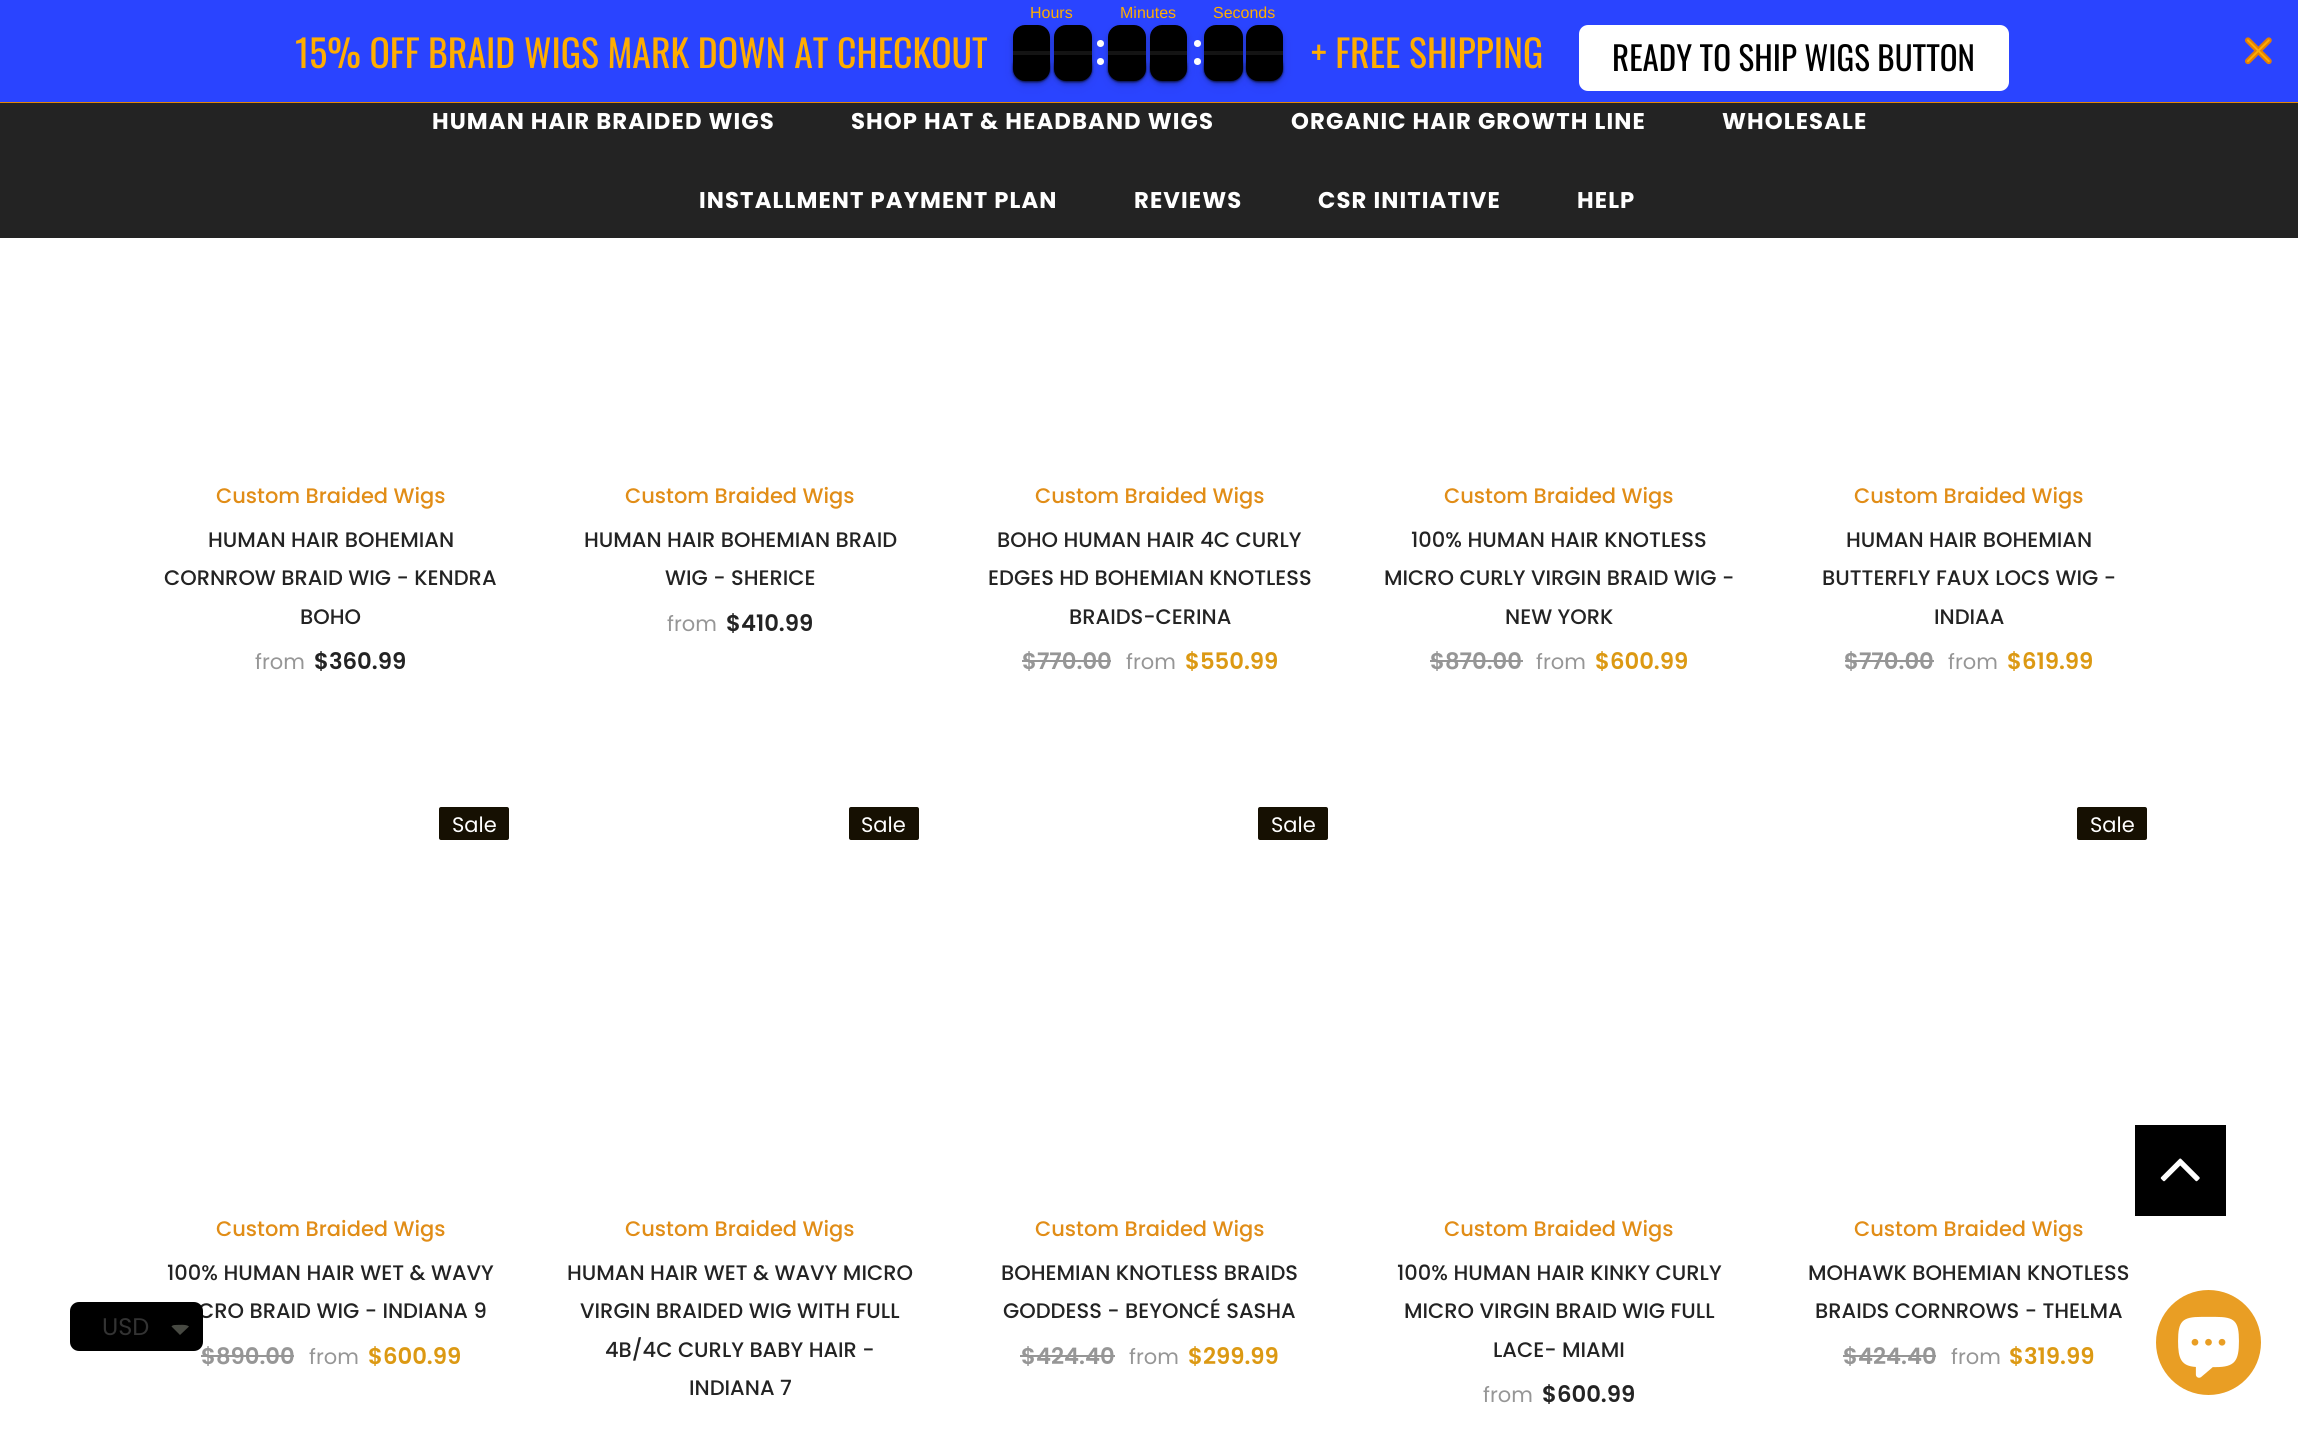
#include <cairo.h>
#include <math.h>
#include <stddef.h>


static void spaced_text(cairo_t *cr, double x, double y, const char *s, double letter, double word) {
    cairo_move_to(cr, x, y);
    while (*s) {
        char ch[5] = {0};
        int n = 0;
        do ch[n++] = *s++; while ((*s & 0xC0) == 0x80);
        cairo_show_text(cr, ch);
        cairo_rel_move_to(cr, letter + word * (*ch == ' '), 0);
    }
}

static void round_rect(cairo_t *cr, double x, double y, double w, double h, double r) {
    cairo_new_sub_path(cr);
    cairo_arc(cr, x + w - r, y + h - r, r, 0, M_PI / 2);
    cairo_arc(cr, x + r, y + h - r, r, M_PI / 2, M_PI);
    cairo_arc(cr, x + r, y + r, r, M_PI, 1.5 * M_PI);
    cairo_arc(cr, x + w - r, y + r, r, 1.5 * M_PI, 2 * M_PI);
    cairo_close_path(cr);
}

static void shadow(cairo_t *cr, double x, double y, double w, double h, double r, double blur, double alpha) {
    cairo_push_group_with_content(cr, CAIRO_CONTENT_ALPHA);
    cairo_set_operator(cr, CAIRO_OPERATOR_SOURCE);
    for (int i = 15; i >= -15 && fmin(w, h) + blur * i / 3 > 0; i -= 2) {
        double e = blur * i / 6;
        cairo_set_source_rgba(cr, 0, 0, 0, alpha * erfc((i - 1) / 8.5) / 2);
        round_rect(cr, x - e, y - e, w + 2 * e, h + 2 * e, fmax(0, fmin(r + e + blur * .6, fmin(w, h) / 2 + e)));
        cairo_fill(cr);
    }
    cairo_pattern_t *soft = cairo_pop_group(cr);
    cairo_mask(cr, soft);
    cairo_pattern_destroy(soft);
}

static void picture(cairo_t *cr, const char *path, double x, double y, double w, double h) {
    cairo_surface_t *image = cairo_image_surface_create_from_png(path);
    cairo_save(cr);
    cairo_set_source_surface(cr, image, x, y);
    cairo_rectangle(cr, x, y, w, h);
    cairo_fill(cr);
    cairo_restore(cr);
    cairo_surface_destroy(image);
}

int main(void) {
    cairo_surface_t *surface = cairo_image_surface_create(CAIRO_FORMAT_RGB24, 2298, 1431);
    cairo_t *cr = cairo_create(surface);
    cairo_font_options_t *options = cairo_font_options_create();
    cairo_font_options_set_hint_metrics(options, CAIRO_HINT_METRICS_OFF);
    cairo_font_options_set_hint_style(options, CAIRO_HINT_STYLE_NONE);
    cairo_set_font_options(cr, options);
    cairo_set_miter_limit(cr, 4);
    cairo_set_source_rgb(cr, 1, 1, 1);
    cairo_paint(cr);
    cairo_set_source_rgb(cr, 0.165, 0.267, 1);
    cairo_rectangle(cr, 0, 0, 2298, 102);
    cairo_fill(cr);
    cairo_set_source_rgb(cr, 0.886, 0.529, 0.024);
    cairo_rectangle(cr, 0, 102, 2298, 1);
    cairo_fill(cr);
    cairo_set_source_rgb(cr, 0.137, 0.137, 0.137);
    cairo_rectangle(cr, 0, 103, 2298, 135);
    cairo_fill(cr);
    cairo_set_source_rgb(cr, 0, 0, 0);
    shadow(cr, 1013, 30, 37, 56, 12, 7, 0.05);
    shadow(cr, 1054, 30, 38, 56, 12, 7, 0.05);
    cairo_select_font_face(cr, "Liberation Sans", CAIRO_FONT_SLANT_NORMAL, CAIRO_FONT_WEIGHT_NORMAL);
    cairo_set_font_size(cr, 16);
    cairo_set_source_rgb(cr, 1, 0.678, 0);
    cairo_move_to(cr, 1030, 18);
    cairo_show_text(cr, "Hours");
    cairo_set_source_rgb(cr, 0, 0, 0);
    shadow(cr, 1013, 28, 37, 56, 12, 2.5, 0.24);
    shadow(cr, 1013, 54, 37, 28, 12, 1, 0.4);
    shadow(cr, 1054, 28, 38, 56, 12, 2.5, 0.24);
    cairo_set_source_rgb(cr, 0, 0, 0);
    cairo_new_path(cr);
    cairo_move_to(cr, 1025, 25);
    cairo_line_to(cr, 1038, 25);
    cairo_curve_to(cr, 1044.5, 25, 1050, 30.5, 1050, 37);
    cairo_line_to(cr, 1050, 53);
    cairo_line_to(cr, 1013, 53);
    cairo_line_to(cr, 1013, 37);
    cairo_curve_to(cr, 1013, 30.5, 1018.5, 25, 1025, 25);
    cairo_close_path(cr);
    cairo_fill(cr);
    cairo_set_source_rgba(cr, 0.2, 0.2, 0.2, 0.4);
    cairo_rectangle(cr, 1013, 51, 37, 2);
    cairo_fill(cr);
    cairo_set_source_rgb(cr, 0, 0, 0);
    shadow(cr, 1013, 54, 37, 28, 12, 1, 0.4);
    cairo_set_source_rgb(cr, 0, 0, 0);
    cairo_new_path(cr);
    cairo_move_to(cr, 1013, 53);
    cairo_line_to(cr, 1050, 53);
    cairo_line_to(cr, 1050, 69);
    cairo_curve_to(cr, 1050, 75.5, 1044.5, 81, 1038, 81);
    cairo_line_to(cr, 1025, 81);
    cairo_curve_to(cr, 1018.5, 81, 1013, 75.5, 1013, 69);
    cairo_close_path(cr);
    cairo_fill(cr);
    cairo_set_source_rgba(cr, 0.8, 0.8, 0.8, 0.1);
    cairo_rectangle(cr, 1013, 53, 37, 2);
    cairo_fill(cr);
    cairo_set_source_rgb(cr, 0, 0, 0);
    shadow(cr, 1054, 54, 38, 28, 12, 1, 0.4);
    cairo_set_source_rgb(cr, 1, 1, 1);
    cairo_arc(cr, 1100.5, 43.5, 3.5, 0, 2 * M_PI);
    cairo_fill(cr);
    cairo_arc(cr, 1100.5, 61.5, 3.5, 0, 2 * M_PI);
    cairo_fill(cr);
    cairo_set_source_rgb(cr, 0, 0, 0);
    shadow(cr, 1108, 30, 38, 56, 12, 7, 0.05);
    cairo_set_source_rgb(cr, 0, 0, 0);
    cairo_new_path(cr);
    cairo_move_to(cr, 1066, 25);
    cairo_line_to(cr, 1080, 25);
    cairo_curve_to(cr, 1086.5, 25, 1092, 30.5, 1092, 37);
    cairo_line_to(cr, 1092, 53);
    cairo_line_to(cr, 1054, 53);
    cairo_line_to(cr, 1054, 37);
    cairo_curve_to(cr, 1054, 30.5, 1059.5, 25, 1066, 25);
    cairo_close_path(cr);
    cairo_fill(cr);
    cairo_set_source_rgba(cr, 0.2, 0.2, 0.2, 0.4);
    cairo_rectangle(cr, 1054, 51, 38, 2);
    cairo_fill(cr);
    cairo_set_source_rgb(cr, 0, 0, 0);
    shadow(cr, 1054, 54, 38, 28, 12, 1, 0.4);
    cairo_set_source_rgb(cr, 0, 0, 0);
    cairo_new_path(cr);
    cairo_move_to(cr, 1054, 53);
    cairo_line_to(cr, 1092, 53);
    cairo_line_to(cr, 1092, 69);
    cairo_curve_to(cr, 1092, 75.5, 1086.5, 81, 1080, 81);
    cairo_line_to(cr, 1066, 81);
    cairo_curve_to(cr, 1059.5, 81, 1054, 75.5, 1054, 69);
    cairo_close_path(cr);
    cairo_fill(cr);
    cairo_set_source_rgba(cr, 0.8, 0.8, 0.8, 0.1);
    cairo_rectangle(cr, 1054, 53, 38, 2);
    cairo_fill(cr);
    cairo_set_source_rgb(cr, 0, 0, 0);
    shadow(cr, 1150, 30, 37, 56, 12, 7, 0.05);
    cairo_set_source_rgb(cr, 1, 0.678, 0);
    cairo_move_to(cr, 1120, 18);
    cairo_show_text(cr, "Minutes");
    cairo_set_source_rgb(cr, 0, 0, 0);
    shadow(cr, 1108, 28, 38, 56, 12, 2.5, 0.24);
    shadow(cr, 1108, 54, 38, 28, 12, 1, 0.4);
    shadow(cr, 1150, 28, 37, 56, 12, 2.5, 0.24);
    cairo_set_source_rgb(cr, 0, 0, 0);
    cairo_new_path(cr);
    cairo_move_to(cr, 1120, 25);
    cairo_line_to(cr, 1134, 25);
    cairo_curve_to(cr, 1140.5, 25, 1146, 30.5, 1146, 37);
    cairo_line_to(cr, 1146, 53);
    cairo_line_to(cr, 1108, 53);
    cairo_line_to(cr, 1108, 37);
    cairo_curve_to(cr, 1108, 30.5, 1113.5, 25, 1120, 25);
    cairo_close_path(cr);
    cairo_fill(cr);
    cairo_set_source_rgba(cr, 0.2, 0.2, 0.2, 0.4);
    cairo_rectangle(cr, 1108, 51, 38, 2);
    cairo_fill(cr);
    cairo_set_source_rgb(cr, 0, 0, 0);
    shadow(cr, 1108, 54, 38, 28, 12, 1, 0.4);
    cairo_set_source_rgb(cr, 0, 0, 0);
    cairo_new_path(cr);
    cairo_move_to(cr, 1108, 53);
    cairo_line_to(cr, 1146, 53);
    cairo_line_to(cr, 1146, 69);
    cairo_curve_to(cr, 1146, 75.5, 1140.5, 81, 1134, 81);
    cairo_line_to(cr, 1120, 81);
    cairo_curve_to(cr, 1113.5, 81, 1108, 75.5, 1108, 69);
    cairo_close_path(cr);
    cairo_fill(cr);
    cairo_set_source_rgba(cr, 0.8, 0.8, 0.8, 0.1);
    cairo_rectangle(cr, 1108, 53, 38, 2);
    cairo_fill(cr);
    cairo_set_source_rgb(cr, 0, 0, 0);
    shadow(cr, 1150, 54, 37, 28, 12, 1, 0.4);
    cairo_set_source_rgb(cr, 1, 1, 1);
    cairo_arc(cr, 1197.5, 43.5, 3.5, 0, 2 * M_PI);
    cairo_fill(cr);
    cairo_arc(cr, 1197.5, 61.5, 3.5, 0, 2 * M_PI);
    cairo_fill(cr);
    cairo_set_source_rgb(cr, 0, 0, 0);
    shadow(cr, 1204, 30, 39, 56, 12, 7, 0.05);
    cairo_set_source_rgb(cr, 0, 0, 0);
    cairo_new_path(cr);
    cairo_move_to(cr, 1162, 25);
    cairo_line_to(cr, 1175, 25);
    cairo_curve_to(cr, 1181.5, 25, 1187, 30.5, 1187, 37);
    cairo_line_to(cr, 1187, 53);
    cairo_line_to(cr, 1150, 53);
    cairo_line_to(cr, 1150, 37);
    cairo_curve_to(cr, 1150, 30.5, 1155.5, 25, 1162, 25);
    cairo_close_path(cr);
    cairo_fill(cr);
    cairo_set_source_rgba(cr, 0.2, 0.2, 0.2, 0.4);
    cairo_rectangle(cr, 1150, 51, 37, 2);
    cairo_fill(cr);
    cairo_set_source_rgb(cr, 0, 0, 0);
    shadow(cr, 1150, 54, 37, 28, 12, 1, 0.4);
    cairo_set_source_rgb(cr, 0, 0, 0);
    cairo_new_path(cr);
    cairo_move_to(cr, 1150, 53);
    cairo_line_to(cr, 1187, 53);
    cairo_line_to(cr, 1187, 69);
    cairo_curve_to(cr, 1187, 75.5, 1181.5, 81, 1175, 81);
    cairo_line_to(cr, 1162, 81);
    cairo_curve_to(cr, 1155.5, 81, 1150, 75.5, 1150, 69);
    cairo_close_path(cr);
    cairo_fill(cr);
    cairo_set_source_rgba(cr, 0.8, 0.8, 0.8, 0.1);
    cairo_rectangle(cr, 1150, 53, 37, 2);
    cairo_fill(cr);
    cairo_set_source_rgb(cr, 0, 0, 0);
    shadow(cr, 1246, 30, 37, 56, 12, 7, 0.05);
    cairo_set_source_rgb(cr, 1, 0.678, 0);
    cairo_move_to(cr, 1213, 18);
    cairo_show_text(cr, "Seconds");
    cairo_set_source_rgb(cr, 0, 0, 0);
    shadow(cr, 1204, 28, 39, 56, 12, 2.5, 0.24);
    shadow(cr, 1204, 54, 39, 28, 12, 1, 0.4);
    shadow(cr, 1246, 28, 37, 56, 12, 2.5, 0.24);
    shadow(cr, 1246, 54, 37, 28, 12, 1, 0.4);
    cairo_set_source_rgb(cr, 0, 0, 0);
    cairo_new_path(cr);
    cairo_move_to(cr, 1216, 25);
    cairo_line_to(cr, 1231, 25);
    cairo_curve_to(cr, 1237.5, 25, 1243, 30.5, 1243, 37);
    cairo_line_to(cr, 1243, 53);
    cairo_line_to(cr, 1204, 53);
    cairo_line_to(cr, 1204, 37);
    cairo_curve_to(cr, 1204, 30.5, 1209.5, 25, 1216, 25);
    cairo_close_path(cr);
    cairo_fill(cr);
    cairo_set_source_rgba(cr, 0.2, 0.2, 0.2, 0.4);
    cairo_rectangle(cr, 1204, 51, 39, 2);
    cairo_fill(cr);
    cairo_set_source_rgb(cr, 0, 0, 0);
    shadow(cr, 1204, 54, 39, 28, 12, 1, 0.4);
    cairo_set_source_rgb(cr, 0, 0, 0);
    cairo_new_path(cr);
    cairo_move_to(cr, 1204, 53);
    cairo_line_to(cr, 1243, 53);
    cairo_line_to(cr, 1243, 69);
    cairo_curve_to(cr, 1243, 75.5, 1237.5, 81, 1231, 81);
    cairo_line_to(cr, 1216, 81);
    cairo_curve_to(cr, 1209.5, 81, 1204, 75.5, 1204, 69);
    cairo_close_path(cr);
    cairo_fill(cr);
    cairo_set_source_rgba(cr, 0.8, 0.8, 0.8, 0.1);
    cairo_rectangle(cr, 1204, 53, 39, 2);
    cairo_fill(cr);
    cairo_set_source_rgb(cr, 0, 0, 0);
    cairo_new_path(cr);
    cairo_move_to(cr, 1258, 25);
    cairo_line_to(cr, 1271, 25);
    cairo_curve_to(cr, 1277.5, 25, 1283, 30.5, 1283, 37);
    cairo_line_to(cr, 1283, 53);
    cairo_line_to(cr, 1246, 53);
    cairo_line_to(cr, 1246, 37);
    cairo_curve_to(cr, 1246, 30.5, 1251.5, 25, 1258, 25);
    cairo_close_path(cr);
    cairo_fill(cr);
    cairo_set_source_rgba(cr, 0.2, 0.2, 0.2, 0.4);
    cairo_rectangle(cr, 1246, 51, 37, 2);
    cairo_fill(cr);
    cairo_set_source_rgb(cr, 0, 0, 0);
    shadow(cr, 1246, 54, 37, 28, 12, 1, 0.4);
    cairo_set_source_rgb(cr, 0, 0, 0);
    cairo_new_path(cr);
    cairo_move_to(cr, 1246, 53);
    cairo_line_to(cr, 1283, 53);
    cairo_line_to(cr, 1283, 69);
    cairo_curve_to(cr, 1283, 75.5, 1277.5, 81, 1271, 81);
    cairo_line_to(cr, 1258, 81);
    cairo_curve_to(cr, 1251.5, 81, 1246, 75.5, 1246, 69);
    cairo_close_path(cr);
    cairo_fill(cr);
    cairo_set_source_rgba(cr, 0.8, 0.8, 0.8, 0.1);
    cairo_rectangle(cr, 1246, 53, 37, 2);
    cairo_fill(cr);
    cairo_select_font_face(cr, "Oswald", CAIRO_FONT_SLANT_NORMAL, CAIRO_FONT_WEIGHT_NORMAL);
    cairo_set_font_size(cr, 37.75);
    cairo_set_source_rgb(cr, 1, 0.678, 0);
    cairo_move_to(cr, 295, 68);
    cairo_show_text(cr, "15% OFF BRAID WIGS MARK DOWN AT CHECKOUT");
    cairo_move_to(cr, 1311, 68);
    cairo_show_text(cr, "+ FREE SHIPPING");
    cairo_set_source_rgb(cr, 1, 1, 1);
    round_rect(cr, 1579, 25, 430, 66, 9);
    cairo_fill(cr);
    cairo_set_font_size(cr, 33);
    cairo_set_source_rgb(cr, 0, 0, 0);
    cairo_move_to(cr, 1612, 71);
    cairo_show_text(cr, "READY TO SHIP WIGS BUTTON");
    picture(cr, "img1.png", 2245, 37, 27, 28);
    cairo_select_font_face(cr, "Poppins", CAIRO_FONT_SLANT_NORMAL, CAIRO_FONT_WEIGHT_BOLD);
    cairo_set_font_size(cr, 22.75);
    cairo_set_source_rgb(cr, 1, 1, 1);
    spaced_text(cr, 432, 129, "HUMAN HAIR BRAIDED WIGS", 1.1, 0);
    spaced_text(cr, 851, 129, "SHOP HAT & HEADBAND WIGS", 1.1, 0);
    spaced_text(cr, 1291, 129, "ORGANIC HAIR GROWTH LINE", 1.1, 0);
    spaced_text(cr, 1722, 129, "WHOLESALE", 1.1, 0);
    spaced_text(cr, 699, 208, "INSTALLMENT PAYMENT PLAN", 1.1, 0);
    spaced_text(cr, 1134, 208, "REVIEWS", 1.1, 0);
    spaced_text(cr, 1318, 208, "CSR INITIATIVE", 1.1, 0);
    spaced_text(cr, 1577, 208, "HELP", 1.1, 0);
    cairo_select_font_face(cr, "Poppins Medium", CAIRO_FONT_SLANT_NORMAL, CAIRO_FONT_WEIGHT_NORMAL);
    cairo_set_font_size(cr, 21);
    cairo_set_source_rgb(cr, 0.137, 0.137, 0.137);
    cairo_move_to(cr, 198, 1318);
    cairo_show_text(cr, "CRO BRAID WIG - INDIANA 9");
    cairo_select_font_face(cr, "Poppins SemiBold", CAIRO_FONT_SLANT_NORMAL, CAIRO_FONT_WEIGHT_NORMAL);
    cairo_set_font_size(cr, 22.75);
    cairo_set_source_rgb(cr, 0.588, 0.588, 0.588);
    cairo_move_to(cr, 201, 1364);
    cairo_show_text(cr, "$890.00");
    cairo_set_source_rgb(cr, 0, 0, 0);
    round_rect(cr, 70, 1302, 133, 49, 9);
    cairo_fill(cr);
    cairo_select_font_face(cr, "Poppins", CAIRO_FONT_SLANT_NORMAL, CAIRO_FONT_WEIGHT_NORMAL);
    cairo_set_font_size(cr, 24);
    cairo_set_source_rgb(cr, 0.2, 0.2, 0.2);
    cairo_move_to(cr, 102, 1335);
    cairo_show_text(cr, "USD");
    cairo_set_source_rgb(cr, 0.278, 0.286, 0.259);
    cairo_new_path(cr);
    cairo_move_to(cr, 175, 1325);
    cairo_curve_to(cr, 178.5, 1325, 186.5, 1324, 189, 1326.5);
    cairo_line_to(cr, 180, 1335);
    cairo_line_to(cr, 171.5, 1326.5);
    cairo_curve_to(cr, 172, 1325.5, 173.5, 1325, 175, 1325);
    cairo_close_path(cr);
    cairo_fill(cr);
    cairo_select_font_face(cr, "Poppins Medium", CAIRO_FONT_SLANT_NORMAL, CAIRO_FONT_WEIGHT_NORMAL);
    cairo_set_font_size(cr, 21);
    cairo_set_source_rgb(cr, 0.882, 0.553, 0.09);
    cairo_move_to(cr, 216, 503);
    cairo_show_text(cr, "Custom Braided Wigs");
    cairo_set_source_rgb(cr, 0.137, 0.137, 0.137);
    cairo_move_to(cr, 208, 547);
    cairo_show_text(cr, "HUMAN HAIR BOHEMIAN");
    cairo_move_to(cr, 164, 585);
    cairo_show_text(cr, "CORNROW BRAID WIG - KENDRA");
    cairo_move_to(cr, 300, 624);
    cairo_show_text(cr, "BOHO");
    cairo_select_font_face(cr, "Poppins", CAIRO_FONT_SLANT_NORMAL, CAIRO_FONT_WEIGHT_NORMAL);
    cairo_set_source_rgb(cr, 0.588, 0.588, 0.588);
    cairo_move_to(cr, 255, 669);
    cairo_show_text(cr, "from");
    cairo_select_font_face(cr, "Poppins SemiBold", CAIRO_FONT_SLANT_NORMAL, CAIRO_FONT_WEIGHT_NORMAL);
    cairo_set_font_size(cr, 22.75);
    cairo_set_source_rgb(cr, 0.137, 0.137, 0.137);
    cairo_move_to(cr, 314, 669);
    cairo_show_text(cr, "$360.99");
    cairo_select_font_face(cr, "Poppins Medium", CAIRO_FONT_SLANT_NORMAL, CAIRO_FONT_WEIGHT_NORMAL);
    cairo_set_font_size(cr, 21);
    cairo_set_source_rgb(cr, 0.882, 0.553, 0.09);
    cairo_move_to(cr, 625, 503);
    cairo_show_text(cr, "Custom Braided Wigs");
    cairo_set_source_rgb(cr, 0.137, 0.137, 0.137);
    cairo_move_to(cr, 584, 547);
    cairo_show_text(cr, "HUMAN HAIR BOHEMIAN BRAID");
    cairo_move_to(cr, 665, 585);
    cairo_show_text(cr, "WIG - SHERICE");
    cairo_select_font_face(cr, "Poppins", CAIRO_FONT_SLANT_NORMAL, CAIRO_FONT_WEIGHT_NORMAL);
    cairo_set_source_rgb(cr, 0.588, 0.588, 0.588);
    cairo_move_to(cr, 667, 631);
    cairo_show_text(cr, "from");
    cairo_select_font_face(cr, "Poppins SemiBold", CAIRO_FONT_SLANT_NORMAL, CAIRO_FONT_WEIGHT_NORMAL);
    cairo_set_font_size(cr, 22.75);
    cairo_set_source_rgb(cr, 0.137, 0.137, 0.137);
    cairo_move_to(cr, 726, 631);
    cairo_show_text(cr, "$410.99");
    cairo_select_font_face(cr, "Poppins Medium", CAIRO_FONT_SLANT_NORMAL, CAIRO_FONT_WEIGHT_NORMAL);
    cairo_set_font_size(cr, 21);
    cairo_set_source_rgb(cr, 0.882, 0.553, 0.09);
    cairo_move_to(cr, 1035, 503);
    cairo_show_text(cr, "Custom Braided Wigs");
    cairo_set_source_rgb(cr, 0.137, 0.137, 0.137);
    cairo_move_to(cr, 997, 547);
    cairo_show_text(cr, "BOHO HUMAN HAIR 4C CURLY");
    cairo_move_to(cr, 988, 585);
    cairo_show_text(cr, "EDGES HD BOHEMIAN KNOTLESS");
    cairo_move_to(cr, 1069, 624);
    cairo_show_text(cr, "BRAIDS-CERINA");
    cairo_select_font_face(cr, "Poppins SemiBold", CAIRO_FONT_SLANT_NORMAL, CAIRO_FONT_WEIGHT_NORMAL);
    cairo_set_font_size(cr, 22.75);
    cairo_set_source_rgb(cr, 0.588, 0.588, 0.588);
    cairo_move_to(cr, 1022, 669);
    cairo_show_text(cr, "$770.00");
    cairo_rectangle(cr, 1022, 660, 89, 2);
    cairo_fill(cr);
    cairo_select_font_face(cr, "Poppins", CAIRO_FONT_SLANT_NORMAL, CAIRO_FONT_WEIGHT_NORMAL);
    cairo_set_font_size(cr, 21);
    cairo_move_to(cr, 1126, 669);
    cairo_show_text(cr, "from");
    cairo_select_font_face(cr, "Poppins SemiBold", CAIRO_FONT_SLANT_NORMAL, CAIRO_FONT_WEIGHT_NORMAL);
    cairo_set_font_size(cr, 22.75);
    cairo_set_source_rgb(cr, 0.863, 0.6, 0.078);
    cairo_move_to(cr, 1185, 669);
    cairo_show_text(cr, "$550.99");
    cairo_select_font_face(cr, "Poppins Medium", CAIRO_FONT_SLANT_NORMAL, CAIRO_FONT_WEIGHT_NORMAL);
    cairo_set_font_size(cr, 21);
    cairo_set_source_rgb(cr, 0.882, 0.553, 0.09);
    cairo_move_to(cr, 1444, 503);
    cairo_show_text(cr, "Custom Braided Wigs");
    cairo_set_source_rgb(cr, 0.137, 0.137, 0.137);
    cairo_move_to(cr, 1411, 547);
    cairo_show_text(cr, "100% HUMAN HAIR KNOTLESS");
    cairo_move_to(cr, 1384, 585);
    cairo_show_text(cr, "MICRO CURLY VIRGIN BRAID WIG -");
    cairo_move_to(cr, 1505, 624);
    cairo_show_text(cr, "NEW YORK");
    cairo_select_font_face(cr, "Poppins SemiBold", CAIRO_FONT_SLANT_NORMAL, CAIRO_FONT_WEIGHT_NORMAL);
    cairo_set_font_size(cr, 22.75);
    cairo_set_source_rgb(cr, 0.588, 0.588, 0.588);
    cairo_move_to(cr, 1430, 669);
    cairo_show_text(cr, "$870.00");
    cairo_rectangle(cr, 1430, 660, 93, 2);
    cairo_fill(cr);
    cairo_select_font_face(cr, "Poppins", CAIRO_FONT_SLANT_NORMAL, CAIRO_FONT_WEIGHT_NORMAL);
    cairo_set_font_size(cr, 21);
    cairo_move_to(cr, 1536, 669);
    cairo_show_text(cr, "from");
    cairo_select_font_face(cr, "Poppins SemiBold", CAIRO_FONT_SLANT_NORMAL, CAIRO_FONT_WEIGHT_NORMAL);
    cairo_set_font_size(cr, 22.75);
    cairo_set_source_rgb(cr, 0.863, 0.6, 0.078);
    cairo_move_to(cr, 1595, 669);
    cairo_show_text(cr, "$600.99");
    cairo_select_font_face(cr, "Poppins Medium", CAIRO_FONT_SLANT_NORMAL, CAIRO_FONT_WEIGHT_NORMAL);
    cairo_set_font_size(cr, 21);
    cairo_set_source_rgb(cr, 0.882, 0.553, 0.09);
    cairo_move_to(cr, 1854, 503);
    cairo_show_text(cr, "Custom Braided Wigs");
    cairo_set_source_rgb(cr, 0.137, 0.137, 0.137);
    cairo_move_to(cr, 1846, 547);
    cairo_show_text(cr, "HUMAN HAIR BOHEMIAN");
    cairo_move_to(cr, 1822, 585);
    cairo_show_text(cr, "BUTTERFLY FAUX LOCS WIG -");
    cairo_move_to(cr, 1934, 624);
    cairo_show_text(cr, "INDIAA");
    cairo_select_font_face(cr, "Poppins SemiBold", CAIRO_FONT_SLANT_NORMAL, CAIRO_FONT_WEIGHT_NORMAL);
    cairo_set_font_size(cr, 22.75);
    cairo_set_source_rgb(cr, 0.588, 0.588, 0.588);
    cairo_move_to(cr, 1844, 669);
    cairo_show_text(cr, "$770.00");
    cairo_rectangle(cr, 1845, 660, 89, 2);
    cairo_fill(cr);
    cairo_select_font_face(cr, "Poppins", CAIRO_FONT_SLANT_NORMAL, CAIRO_FONT_WEIGHT_NORMAL);
    cairo_set_font_size(cr, 21);
    cairo_move_to(cr, 1948, 669);
    cairo_show_text(cr, "from");
    cairo_select_font_face(cr, "Poppins SemiBold", CAIRO_FONT_SLANT_NORMAL, CAIRO_FONT_WEIGHT_NORMAL);
    cairo_set_font_size(cr, 22.75);
    cairo_set_source_rgb(cr, 0.863, 0.6, 0.078);
    cairo_move_to(cr, 2007, 669);
    cairo_show_text(cr, "$619.99");
    cairo_set_source_rgb(cr, 0.086, 0.063, 0.008);
    round_rect(cr, 439, 807, 70, 33, 2);
    cairo_fill(cr);
    cairo_select_font_face(cr, "Poppins", CAIRO_FONT_SLANT_NORMAL, CAIRO_FONT_WEIGHT_NORMAL);
    cairo_set_font_size(cr, 21);
    cairo_set_source_rgb(cr, 1, 1, 1);
    cairo_move_to(cr, 452, 832);
    cairo_show_text(cr, "Sale");
    cairo_select_font_face(cr, "Poppins Medium", CAIRO_FONT_SLANT_NORMAL, CAIRO_FONT_WEIGHT_NORMAL);
    cairo_set_source_rgb(cr, 0.882, 0.553, 0.09);
    cairo_move_to(cr, 216, 1236);
    cairo_show_text(cr, "Custom Braided Wigs");
    cairo_set_source_rgb(cr, 0.137, 0.137, 0.137);
    cairo_move_to(cr, 167, 1280);
    cairo_show_text(cr, "100% HUMAN HAIR WET & WAVY");
    cairo_set_source_rgb(cr, 0.588, 0.588, 0.588);
    cairo_rectangle(cr, 201, 1355, 93, 2);
    cairo_fill(cr);
    cairo_select_font_face(cr, "Poppins", CAIRO_FONT_SLANT_NORMAL, CAIRO_FONT_WEIGHT_NORMAL);
    cairo_move_to(cr, 309, 1364);
    cairo_show_text(cr, "from");
    cairo_select_font_face(cr, "Poppins SemiBold", CAIRO_FONT_SLANT_NORMAL, CAIRO_FONT_WEIGHT_NORMAL);
    cairo_set_font_size(cr, 22.75);
    cairo_set_source_rgb(cr, 0.863, 0.6, 0.078);
    cairo_move_to(cr, 368, 1364);
    cairo_show_text(cr, "$600.99");
    cairo_set_source_rgb(cr, 0.086, 0.063, 0.008);
    round_rect(cr, 849, 807, 70, 33, 2);
    cairo_fill(cr);
    cairo_select_font_face(cr, "Poppins", CAIRO_FONT_SLANT_NORMAL, CAIRO_FONT_WEIGHT_NORMAL);
    cairo_set_font_size(cr, 21);
    cairo_set_source_rgb(cr, 1, 1, 1);
    cairo_move_to(cr, 861, 832);
    cairo_show_text(cr, "Sale");
    cairo_select_font_face(cr, "Poppins Medium", CAIRO_FONT_SLANT_NORMAL, CAIRO_FONT_WEIGHT_NORMAL);
    cairo_set_source_rgb(cr, 0.882, 0.553, 0.09);
    cairo_move_to(cr, 625, 1236);
    cairo_show_text(cr, "Custom Braided Wigs");
    cairo_set_source_rgb(cr, 0.137, 0.137, 0.137);
    cairo_move_to(cr, 567, 1280);
    cairo_show_text(cr, "HUMAN HAIR WET & WAVY MICRO");
    cairo_move_to(cr, 580, 1318);
    cairo_show_text(cr, "VIRGIN BRAIDED WIG WITH FULL");
    cairo_move_to(cr, 605, 1357);
    cairo_show_text(cr, "4B/4C CURLY BABY HAIR -");
    cairo_move_to(cr, 689, 1395);
    cairo_show_text(cr, "INDIANA 7");
    cairo_set_source_rgb(cr, 0.086, 0.063, 0.008);
    round_rect(cr, 1258, 807, 70, 33, 2);
    cairo_fill(cr);
    cairo_select_font_face(cr, "Poppins", CAIRO_FONT_SLANT_NORMAL, CAIRO_FONT_WEIGHT_NORMAL);
    cairo_set_source_rgb(cr, 1, 1, 1);
    cairo_move_to(cr, 1271, 832);
    cairo_show_text(cr, "Sale");
    cairo_select_font_face(cr, "Poppins Medium", CAIRO_FONT_SLANT_NORMAL, CAIRO_FONT_WEIGHT_NORMAL);
    cairo_set_source_rgb(cr, 0.882, 0.553, 0.09);
    cairo_move_to(cr, 1035, 1236);
    cairo_show_text(cr, "Custom Braided Wigs");
    cairo_set_source_rgb(cr, 0.137, 0.137, 0.137);
    cairo_move_to(cr, 1001, 1280);
    cairo_show_text(cr, "BOHEMIAN KNOTLESS BRAIDS");
    cairo_move_to(cr, 1003, 1318);
    cairo_show_text(cr, "GODDESS - BEYONCÉ SASHA");
    cairo_select_font_face(cr, "Poppins SemiBold", CAIRO_FONT_SLANT_NORMAL, CAIRO_FONT_WEIGHT_NORMAL);
    cairo_set_font_size(cr, 22.75);
    cairo_set_source_rgb(cr, 0.588, 0.588, 0.588);
    cairo_move_to(cr, 1021, 1364);
    cairo_show_text(cr, "$424.40");
    cairo_rectangle(cr, 1020, 1355, 95, 2);
    cairo_fill(cr);
    cairo_select_font_face(cr, "Poppins", CAIRO_FONT_SLANT_NORMAL, CAIRO_FONT_WEIGHT_NORMAL);
    cairo_set_font_size(cr, 21);
    cairo_move_to(cr, 1129, 1364);
    cairo_show_text(cr, "from");
    cairo_select_font_face(cr, "Poppins SemiBold", CAIRO_FONT_SLANT_NORMAL, CAIRO_FONT_WEIGHT_NORMAL);
    cairo_set_font_size(cr, 22.75);
    cairo_set_source_rgb(cr, 0.863, 0.6, 0.078);
    cairo_move_to(cr, 1188, 1364);
    cairo_show_text(cr, "$299.99");
    cairo_select_font_face(cr, "Poppins Medium", CAIRO_FONT_SLANT_NORMAL, CAIRO_FONT_WEIGHT_NORMAL);
    cairo_set_font_size(cr, 21);
    cairo_set_source_rgb(cr, 0.882, 0.553, 0.09);
    cairo_move_to(cr, 1444, 1236);
    cairo_show_text(cr, "Custom Braided Wigs");
    cairo_set_source_rgb(cr, 0.137, 0.137, 0.137);
    cairo_move_to(cr, 1397, 1280);
    cairo_show_text(cr, "100% HUMAN HAIR KINKY CURLY");
    cairo_move_to(cr, 1404, 1318);
    cairo_show_text(cr, "MICRO VIRGIN BRAID WIG FULL");
    cairo_move_to(cr, 1493, 1357);
    cairo_show_text(cr, "LACE- MIAMI");
    cairo_select_font_face(cr, "Poppins", CAIRO_FONT_SLANT_NORMAL, CAIRO_FONT_WEIGHT_NORMAL);
    cairo_set_source_rgb(cr, 0.588, 0.588, 0.588);
    cairo_move_to(cr, 1483, 1402);
    cairo_show_text(cr, "from");
    cairo_select_font_face(cr, "Poppins SemiBold", CAIRO_FONT_SLANT_NORMAL, CAIRO_FONT_WEIGHT_NORMAL);
    cairo_set_font_size(cr, 22.75);
    cairo_set_source_rgb(cr, 0.137, 0.137, 0.137);
    cairo_move_to(cr, 1542, 1402);
    cairo_show_text(cr, "$600.99");
    cairo_set_source_rgb(cr, 0.086, 0.063, 0.008);
    round_rect(cr, 2077, 807, 70, 33, 2);
    cairo_fill(cr);
    cairo_select_font_face(cr, "Poppins", CAIRO_FONT_SLANT_NORMAL, CAIRO_FONT_WEIGHT_NORMAL);
    cairo_set_font_size(cr, 21);
    cairo_set_source_rgb(cr, 1, 1, 1);
    cairo_move_to(cr, 2090, 832);
    cairo_show_text(cr, "Sale");
    cairo_select_font_face(cr, "Poppins Medium", CAIRO_FONT_SLANT_NORMAL, CAIRO_FONT_WEIGHT_NORMAL);
    cairo_set_source_rgb(cr, 0.882, 0.553, 0.09);
    cairo_move_to(cr, 1854, 1236);
    cairo_show_text(cr, "Custom Braided Wigs");
    cairo_set_source_rgb(cr, 0.137, 0.137, 0.137);
    cairo_move_to(cr, 1808, 1280);
    cairo_show_text(cr, "MOHAWK BOHEMIAN KNOTLESS");
    cairo_move_to(cr, 1815, 1318);
    cairo_show_text(cr, "BRAIDS CORNROWS - THELMA");
    cairo_select_font_face(cr, "Poppins SemiBold", CAIRO_FONT_SLANT_NORMAL, CAIRO_FONT_WEIGHT_NORMAL);
    cairo_set_font_size(cr, 22.75);
    cairo_set_source_rgb(cr, 0.588, 0.588, 0.588);
    cairo_move_to(cr, 1843, 1364);
    cairo_show_text(cr, "$424.40");
    cairo_rectangle(cr, 1843, 1355, 93, 2);
    cairo_fill(cr);
    cairo_select_font_face(cr, "Poppins", CAIRO_FONT_SLANT_NORMAL, CAIRO_FONT_WEIGHT_NORMAL);
    cairo_set_font_size(cr, 21);
    cairo_move_to(cr, 1951, 1364);
    cairo_show_text(cr, "from");
    cairo_select_font_face(cr, "Poppins SemiBold", CAIRO_FONT_SLANT_NORMAL, CAIRO_FONT_WEIGHT_NORMAL);
    cairo_set_font_size(cr, 22.75);
    cairo_set_source_rgb(cr, 0.863, 0.6, 0.078);
    cairo_move_to(cr, 2009, 1364);
    cairo_show_text(cr, "$319.99");
    cairo_set_source_rgb(cr, 0, 0, 0);
    cairo_rectangle(cr, 2135, 1125, 91, 91);
    cairo_fill(cr);
    picture(cr, "img2.png", 2160, 1158, 40, 24);
    cairo_set_source_rgb(cr, 0.914, 0.62, 0.141);
    cairo_arc(cr, 2208.5, 1342.5, 52.5, 0, 2 * M_PI);
    cairo_fill(cr);
    picture(cr, "img3.png", 2178, 1316, 61, 62);
    cairo_surface_write_to_png(surface, "page.png");
    cairo_font_options_destroy(options);
    cairo_destroy(cr);
    cairo_surface_destroy(surface);
    return 0;
}
